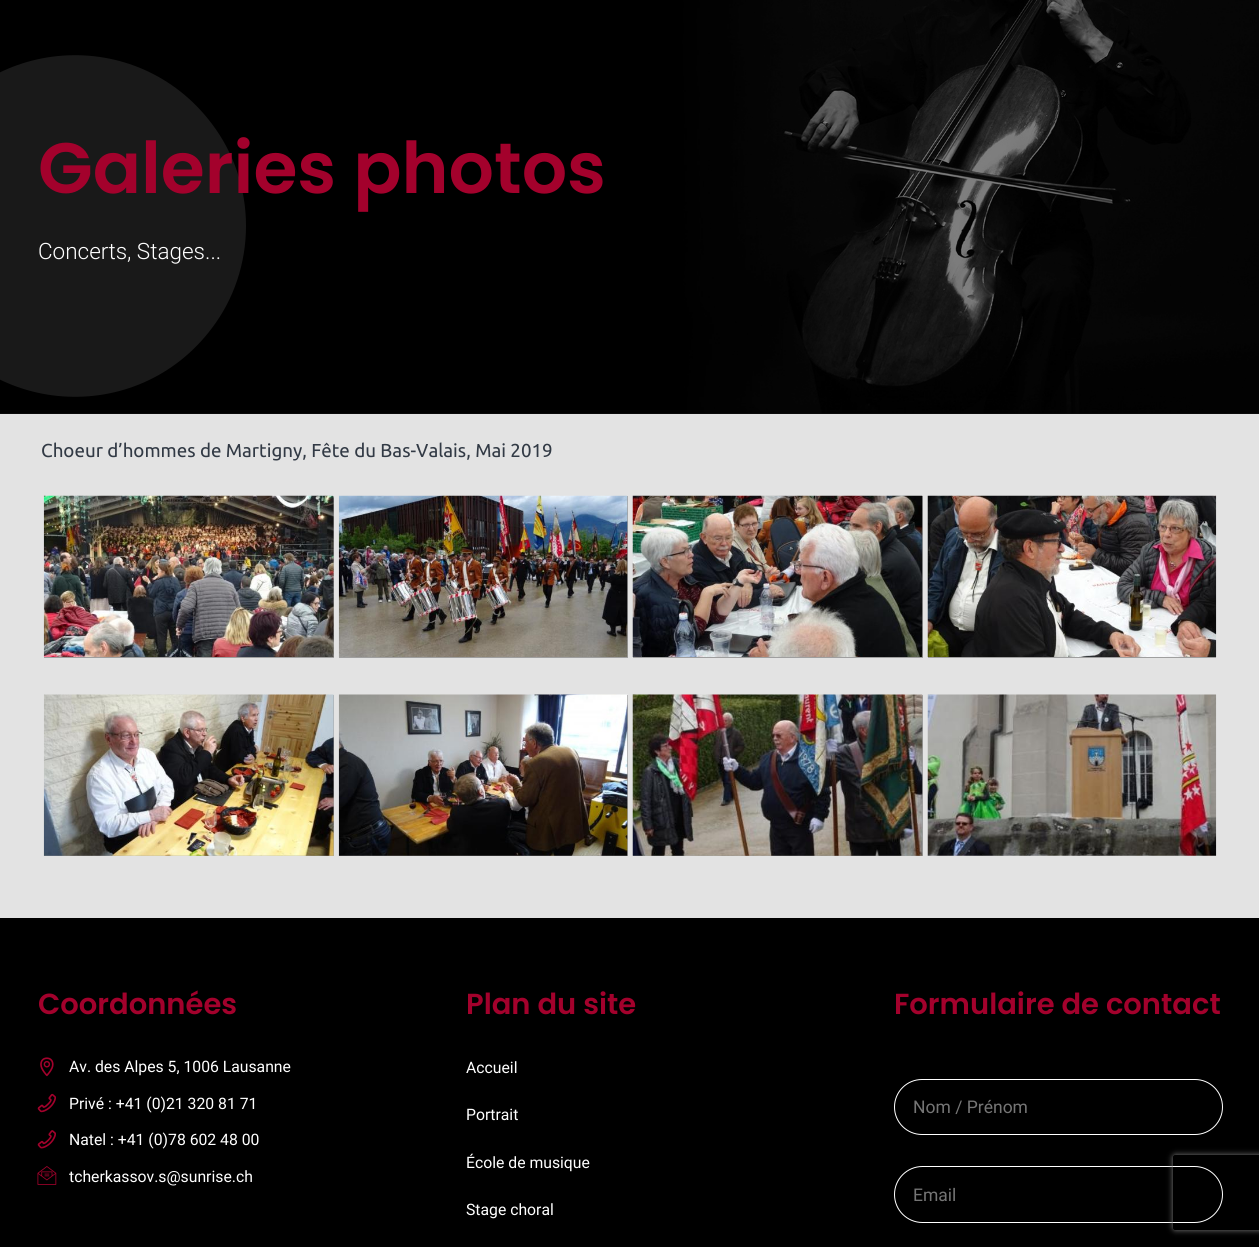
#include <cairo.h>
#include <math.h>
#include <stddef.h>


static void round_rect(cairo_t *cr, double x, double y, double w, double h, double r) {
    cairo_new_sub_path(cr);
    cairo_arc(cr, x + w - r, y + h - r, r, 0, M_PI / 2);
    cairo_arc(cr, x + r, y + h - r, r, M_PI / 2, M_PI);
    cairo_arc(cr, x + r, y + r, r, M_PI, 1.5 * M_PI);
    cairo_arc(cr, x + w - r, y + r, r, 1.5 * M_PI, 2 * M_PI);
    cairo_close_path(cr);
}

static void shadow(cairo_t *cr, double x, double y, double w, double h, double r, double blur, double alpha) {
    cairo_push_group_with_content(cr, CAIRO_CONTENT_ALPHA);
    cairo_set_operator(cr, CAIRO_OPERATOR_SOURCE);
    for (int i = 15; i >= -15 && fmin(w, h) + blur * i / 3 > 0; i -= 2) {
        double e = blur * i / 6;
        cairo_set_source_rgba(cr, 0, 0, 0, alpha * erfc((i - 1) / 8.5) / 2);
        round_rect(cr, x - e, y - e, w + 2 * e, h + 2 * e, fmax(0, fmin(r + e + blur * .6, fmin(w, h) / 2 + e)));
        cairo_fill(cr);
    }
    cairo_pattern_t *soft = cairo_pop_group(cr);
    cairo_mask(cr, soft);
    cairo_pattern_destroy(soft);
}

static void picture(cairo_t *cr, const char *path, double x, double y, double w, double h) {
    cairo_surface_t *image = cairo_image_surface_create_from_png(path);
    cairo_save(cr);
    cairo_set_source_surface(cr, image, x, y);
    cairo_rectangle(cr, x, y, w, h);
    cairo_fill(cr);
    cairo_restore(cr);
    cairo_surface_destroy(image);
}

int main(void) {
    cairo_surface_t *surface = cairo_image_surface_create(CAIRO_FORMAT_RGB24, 1259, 1247);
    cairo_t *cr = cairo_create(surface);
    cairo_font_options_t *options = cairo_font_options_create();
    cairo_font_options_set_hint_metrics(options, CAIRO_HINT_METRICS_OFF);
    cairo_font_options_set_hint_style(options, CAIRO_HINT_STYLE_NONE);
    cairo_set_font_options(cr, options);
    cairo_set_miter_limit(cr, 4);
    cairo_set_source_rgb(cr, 0.89, 0.89, 0.89);
    cairo_paint(cr);
    cairo_set_source_rgb(cr, 0.051, 0.051, 0.051);
    cairo_rectangle(cr, 0, 413, 1259, 1);
    cairo_fill(cr);
    picture(cr, "img1.png", 0, 0, 1259, 414);
    cairo_set_source_rgb(cr, 0.098, 0.098, 0.098);
    cairo_new_path(cr);
    cairo_move_to(cr, 246, 226);
    cairo_curve_to(cr, 246, 263, 234, 299, 212, 328);
    cairo_curve_to(cr, 137, 428, -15, 417, -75, 308);
    cairo_curve_to(cr, -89, 283, -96, 255, -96, 226);
    cairo_curve_to(cr, -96, 197, -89, 169, -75, 144);
    cairo_curve_to(cr, -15, 35, 137, 24, 212, 124);
    cairo_curve_to(cr, 234, 153, 246, 189, 246, 226);
    cairo_close_path(cr);
    cairo_fill(cr);
    cairo_select_font_face(cr, "Poppins SemiBold", CAIRO_FONT_SLANT_NORMAL, CAIRO_FONT_WEIGHT_NORMAL);
    cairo_set_font_size(cr, 71.25);
    cairo_set_source_rgb(cr, 0.639, 0.004, 0.173);
    cairo_move_to(cr, 38, 193);
    cairo_show_text(cr, "Galeries photos");
    cairo_select_font_face(cr, "Roboto Light", CAIRO_FONT_SLANT_NORMAL, CAIRO_FONT_WEIGHT_NORMAL);
    cairo_set_font_size(cr, 22.5);
    cairo_set_source_rgb(cr, 1, 1, 1);
    cairo_move_to(cr, 38, 259);
    cairo_show_text(cr, "Concerts, Stages...");
    cairo_select_font_face(cr, "Ubuntu", CAIRO_FONT_SLANT_NORMAL, CAIRO_FONT_WEIGHT_NORMAL);
    cairo_set_font_size(cr, 18.75);
    cairo_set_source_rgb(cr, 0.196, 0.227, 0.271);
    cairo_move_to(cr, 41, 457);
    cairo_show_text(cr, "Choeur d’hommes de Martigny, Fête du Bas-Valais, Mai 2019");
    cairo_set_source_rgb(cr, 0.624, 0.624, 0.624);
    cairo_rectangle(cr, 44, 496, 290, 162);
    cairo_fill(cr);
    picture(cr, "img2.png", 43, 495, 291, 162);
    cairo_rectangle(cr, 339, 496, 289, 162);
    cairo_fill(cr);
    picture(cr, "img3.png", 338, 495, 290, 162);
    cairo_rectangle(cr, 633, 496, 290, 162);
    cairo_fill(cr);
    picture(cr, "img4.png", 632, 495, 291, 162);
    cairo_rectangle(cr, 928, 657, 288, 1);
    cairo_fill(cr);
    picture(cr, "img5.png", 927, 495, 290, 162);
    cairo_rectangle(cr, 44, 695, 290, 161);
    cairo_fill(cr);
    picture(cr, "img6.png", 43, 694, 291, 162);
    cairo_rectangle(cr, 339, 695, 289, 161);
    cairo_fill(cr);
    picture(cr, "img7.png", 338, 694, 290, 162);
    cairo_rectangle(cr, 633, 695, 290, 161);
    cairo_fill(cr);
    picture(cr, "img8.png", 632, 694, 291, 162);
    picture(cr, "img9.png", 927, 694, 290, 162);
    cairo_set_source_rgb(cr, 0, 0, 0);
    cairo_rectangle(cr, 0, 918, 1259, 329);
    cairo_fill(cr);
    cairo_select_font_face(cr, "Poppins SemiBold", CAIRO_FONT_SLANT_NORMAL, CAIRO_FONT_WEIGHT_NORMAL);
    cairo_set_font_size(cr, 29);
    cairo_set_source_rgb(cr, 0.639, 0.004, 0.173);
    cairo_move_to(cr, 38, 1014);
    cairo_show_text(cr, "Coordonnées");
    picture(cr, "img10.png", 40, 1057, 14, 20);
    cairo_select_font_face(cr, "Roboto", CAIRO_FONT_SLANT_NORMAL, CAIRO_FONT_WEIGHT_NORMAL);
    cairo_set_font_size(cr, 15.75);
    cairo_set_source_rgb(cr, 1, 1, 1);
    cairo_move_to(cr, 69, 1072);
    cairo_show_text(cr, "Av. des Alpes 5, 1006 Lausanne");
    picture(cr, "img11.png", 37, 1093, 19, 20);
    cairo_move_to(cr, 69, 1109);
    cairo_show_text(cr, "Privé : +41 (0)21 320 81 71");
    picture(cr, "img12.png", 37, 1130, 19, 19);
    cairo_move_to(cr, 69, 1145);
    cairo_show_text(cr, "Natel : +41 (0)78 602 48 00");
    picture(cr, "img13.png", 37, 1166, 20, 19);
    cairo_move_to(cr, 69, 1182);
    cairo_show_text(cr, "tcherkassov.s@sunrise.ch");
    cairo_select_font_face(cr, "Poppins SemiBold", CAIRO_FONT_SLANT_NORMAL, CAIRO_FONT_WEIGHT_NORMAL);
    cairo_set_font_size(cr, 29);
    cairo_set_source_rgb(cr, 0.639, 0.004, 0.173);
    cairo_move_to(cr, 466, 1014);
    cairo_show_text(cr, "Plan du site");
    cairo_select_font_face(cr, "Roboto", CAIRO_FONT_SLANT_NORMAL, CAIRO_FONT_WEIGHT_NORMAL);
    cairo_set_font_size(cr, 15.75);
    cairo_set_source_rgb(cr, 1, 1, 1);
    cairo_move_to(cr, 466, 1073);
    cairo_show_text(cr, "Accueil");
    cairo_move_to(cr, 466, 1120);
    cairo_show_text(cr, "Portrait");
    cairo_move_to(cr, 466, 1168);
    cairo_show_text(cr, "École de musique");
    cairo_move_to(cr, 466, 1215);
    cairo_show_text(cr, "Stage choral");
    cairo_select_font_face(cr, "Poppins SemiBold", CAIRO_FONT_SLANT_NORMAL, CAIRO_FONT_WEIGHT_NORMAL);
    cairo_set_font_size(cr, 29);
    cairo_set_source_rgb(cr, 0.639, 0.004, 0.173);
    cairo_move_to(cr, 894, 1014);
    cairo_show_text(cr, "Formulaire de contact");
    round_rect(cr, 894.5, 1079.5, 328, 55, 27.5);
    cairo_set_source_rgb(cr, 1, 1, 1);
    cairo_set_line_width(cr, 1);
    cairo_stroke(cr);
    cairo_select_font_face(cr, "Roboto", CAIRO_FONT_SLANT_NORMAL, CAIRO_FONT_WEIGHT_NORMAL);
    cairo_set_font_size(cr, 17.5);
    cairo_set_source_rgb(cr, 0.459, 0.459, 0.459);
    cairo_move_to(cr, 913, 1113);
    cairo_show_text(cr, "Nom / Prénom");
    round_rect(cr, 894.5, 1166.5, 328, 56, 28);
    cairo_set_source_rgb(cr, 1, 1, 1);
    cairo_stroke(cr);
    cairo_set_source_rgb(cr, 0.459, 0.459, 0.459);
    cairo_move_to(cr, 913, 1201);
    cairo_show_text(cr, "Email");
    cairo_save(cr);
    cairo_set_fill_rule(cr, CAIRO_FILL_RULE_EVEN_ODD);
    cairo_new_path(cr);
    cairo_move_to(cr, 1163, 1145);
    cairo_line_to(cr, 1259, 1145);
    cairo_line_to(cr, 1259, 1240);
    cairo_line_to(cr, 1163, 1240);
    cairo_close_path(cr);
    cairo_move_to(cr, 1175.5, 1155);
    cairo_line_to(cr, 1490.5, 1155);
    cairo_curve_to(cr, 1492, 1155, 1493, 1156, 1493, 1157.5);
    cairo_line_to(cr, 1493, 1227.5);
    cairo_curve_to(cr, 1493, 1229, 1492, 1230, 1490.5, 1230);
    cairo_line_to(cr, 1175.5, 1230);
    cairo_curve_to(cr, 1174, 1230, 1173, 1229, 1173, 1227.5);
    cairo_line_to(cr, 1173, 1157.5);
    cairo_curve_to(cr, 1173, 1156, 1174, 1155, 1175.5, 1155);
    cairo_close_path(cr);
    cairo_clip(cr);
    cairo_set_source_rgb(cr, 0.502, 0.502, 0.502);
    shadow(cr, 1173, 1155, 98, 75, 2.5, 3, 1);
    cairo_restore(cr);
    cairo_surface_write_to_png(surface, "page.png");
    cairo_font_options_destroy(options);
    cairo_destroy(cr);
    cairo_surface_destroy(surface);
    return 0;
}
